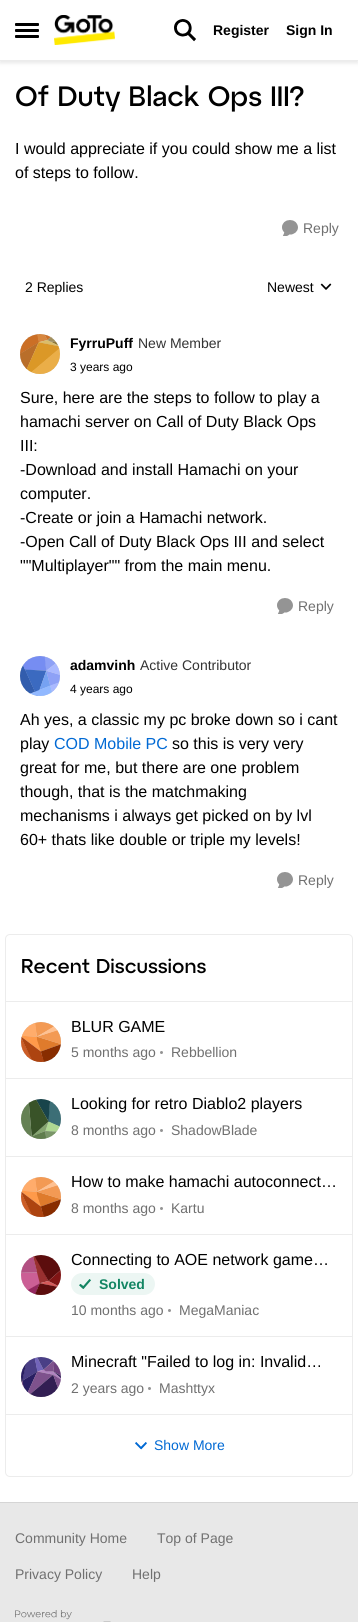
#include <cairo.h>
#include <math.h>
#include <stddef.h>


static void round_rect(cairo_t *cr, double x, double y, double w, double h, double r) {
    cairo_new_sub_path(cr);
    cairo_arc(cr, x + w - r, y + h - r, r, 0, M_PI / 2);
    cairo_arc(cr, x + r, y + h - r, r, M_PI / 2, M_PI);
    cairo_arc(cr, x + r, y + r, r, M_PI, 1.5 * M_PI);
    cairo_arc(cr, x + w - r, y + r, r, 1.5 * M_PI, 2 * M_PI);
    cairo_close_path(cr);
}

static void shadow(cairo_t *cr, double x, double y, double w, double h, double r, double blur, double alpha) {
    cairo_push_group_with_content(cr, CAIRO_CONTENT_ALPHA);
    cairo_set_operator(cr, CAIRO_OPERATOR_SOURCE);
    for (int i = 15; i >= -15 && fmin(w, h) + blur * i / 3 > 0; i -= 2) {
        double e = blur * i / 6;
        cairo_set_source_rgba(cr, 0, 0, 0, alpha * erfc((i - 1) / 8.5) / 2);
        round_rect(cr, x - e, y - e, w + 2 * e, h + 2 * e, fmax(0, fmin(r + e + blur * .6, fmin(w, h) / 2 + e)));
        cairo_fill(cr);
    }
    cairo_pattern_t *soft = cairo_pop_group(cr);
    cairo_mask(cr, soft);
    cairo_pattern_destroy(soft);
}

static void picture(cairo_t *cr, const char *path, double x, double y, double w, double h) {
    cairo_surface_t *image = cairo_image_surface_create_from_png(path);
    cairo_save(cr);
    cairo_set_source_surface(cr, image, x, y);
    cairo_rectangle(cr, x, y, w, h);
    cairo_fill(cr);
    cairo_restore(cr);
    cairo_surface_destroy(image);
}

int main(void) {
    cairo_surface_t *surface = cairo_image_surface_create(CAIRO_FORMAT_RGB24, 358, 1622);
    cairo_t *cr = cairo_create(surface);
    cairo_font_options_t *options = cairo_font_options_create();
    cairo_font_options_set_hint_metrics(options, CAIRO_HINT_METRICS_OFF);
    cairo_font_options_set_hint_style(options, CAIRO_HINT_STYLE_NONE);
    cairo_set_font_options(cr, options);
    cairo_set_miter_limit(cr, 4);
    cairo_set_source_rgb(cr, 1, 1, 1);
    cairo_paint(cr);
    cairo_set_source_rgb(cr, 0.2, 0.2, 0.2);
    shadow(cr, 0, 2, 358, 61, 0, 2, 0.12);
    cairo_set_source_rgb(cr, 1, 1, 1);
    cairo_rectangle(cr, 0, 0, 358, 60);
    cairo_fill(cr);
    cairo_set_source_rgb(cr, 0.922, 0.922, 0.922);
    cairo_rectangle(cr, 0, 60, 358, 1);
    cairo_fill(cr);
    cairo_set_source_rgb(cr, 0, 0, 0);
    round_rect(cr, 15, 23, 24, 3, 1);
    cairo_fill(cr);
    round_rect(cr, 15, 29, 24, 3, 1);
    cairo_fill(cr);
    round_rect(cr, 15, 35, 24, 3, 1);
    cairo_fill(cr);
    picture(cr, "img1.png", 54, 15, 61, 30);
    picture(cr, "img2.png", 174, 19, 22, 23);
    cairo_select_font_face(cr, "Liberation Sans", CAIRO_FONT_SLANT_NORMAL, CAIRO_FONT_WEIGHT_BOLD);
    cairo_set_font_size(cr, 14);
    cairo_move_to(cr, 213, 35);
    cairo_show_text(cr, "Register");
    cairo_move_to(cr, 286, 35);
    cairo_show_text(cr, "Sign In");
    cairo_select_font_face(cr, "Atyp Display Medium", CAIRO_FONT_SLANT_NORMAL, CAIRO_FONT_WEIGHT_NORMAL);
    cairo_set_font_size(cr, 28);
    cairo_move_to(cr, 15, 106);
    cairo_show_text(cr, "Of Duty Black Ops III?");
    cairo_select_font_face(cr, "Liberation Sans", CAIRO_FONT_SLANT_NORMAL, CAIRO_FONT_WEIGHT_NORMAL);
    cairo_set_font_size(cr, 16);
    cairo_move_to(cr, 15, 154);
    cairo_show_text(cr, "I would appreciate if you could show me a list");
    cairo_move_to(cr, 15, 178);
    cairo_show_text(cr, "of steps to follow.");
    picture(cr, "img3.png", 282, 220, 16, 16);
    cairo_set_font_size(cr, 14);
    cairo_set_source_rgb(cr, 0.439, 0.439, 0.439);
    cairo_move_to(cr, 303, 233);
    cairo_show_text(cr, "Reply");
    cairo_set_source_rgb(cr, 0, 0, 0);
    cairo_move_to(cr, 25, 292);
    cairo_show_text(cr, "2 Replies");
    cairo_move_to(cr, 267, 292);
    cairo_show_text(cr, "Newest");
    picture(cr, "img4.png", 320, 283, 12, 7);
    cairo_set_source_rgb(cr, 0.851, 0.851, 0.851);
    cairo_arc(cr, 40, 354, 20, 0, 2 * M_PI);
    cairo_fill(cr);
    picture(cr, "img5.png", 20, 334, 40, 40);
    cairo_select_font_face(cr, "Liberation Sans", CAIRO_FONT_SLANT_NORMAL, CAIRO_FONT_WEIGHT_BOLD);
    cairo_set_source_rgb(cr, 0, 0, 0);
    cairo_move_to(cr, 70, 348);
    cairo_show_text(cr, "FyrruPuff");
    cairo_select_font_face(cr, "Liberation Sans", CAIRO_FONT_SLANT_NORMAL, CAIRO_FONT_WEIGHT_NORMAL);
    cairo_set_source_rgb(cr, 0.2, 0.2, 0.2);
    cairo_move_to(cr, 138, 348);
    cairo_show_text(cr, "New Member");
    cairo_set_font_size(cr, 12);
    cairo_set_source_rgb(cr, 0, 0, 0);
    cairo_move_to(cr, 70, 371);
    cairo_show_text(cr, "3 years ago");
    cairo_set_font_size(cr, 16);
    cairo_move_to(cr, 20, 403);
    cairo_show_text(cr, "Sure, here are the steps to follow to play a");
    cairo_move_to(cr, 20, 427);
    cairo_show_text(cr, "hamachi server on Call of Duty Black Ops");
    cairo_move_to(cr, 20, 451);
    cairo_show_text(cr, "III:");
    cairo_move_to(cr, 20, 475);
    cairo_show_text(cr, "-Download and install Hamachi on your");
    cairo_move_to(cr, 20, 499);
    cairo_show_text(cr, "computer.");
    cairo_move_to(cr, 20, 523);
    cairo_show_text(cr, "-Create or join a Hamachi network.");
    cairo_move_to(cr, 20, 547);
    cairo_show_text(cr, "-Open Call of Duty Black Ops III and select");
    cairo_move_to(cr, 20, 571);
    cairo_show_text(cr, "\"\"Multiplayer\"\" from the main menu.");
    picture(cr, "img3.png", 277, 598, 16, 16);
    cairo_set_font_size(cr, 14);
    cairo_set_source_rgb(cr, 0.439, 0.439, 0.439);
    cairo_move_to(cr, 298, 611);
    cairo_show_text(cr, "Reply");
    cairo_set_source_rgb(cr, 0.851, 0.851, 0.851);
    cairo_new_path(cr);
    cairo_arc(cr, 40, 676, 20, 0, 2 * M_PI);
    cairo_fill(cr);
    picture(cr, "img6.png", 20, 656, 40, 40);
    cairo_select_font_face(cr, "Liberation Sans", CAIRO_FONT_SLANT_NORMAL, CAIRO_FONT_WEIGHT_BOLD);
    cairo_set_source_rgb(cr, 0, 0, 0);
    cairo_move_to(cr, 70, 670);
    cairo_show_text(cr, "adamvinh");
    cairo_select_font_face(cr, "Liberation Sans", CAIRO_FONT_SLANT_NORMAL, CAIRO_FONT_WEIGHT_NORMAL);
    cairo_set_source_rgb(cr, 0.2, 0.2, 0.2);
    cairo_move_to(cr, 140, 670);
    cairo_show_text(cr, "Active Contributor");
    cairo_set_font_size(cr, 12);
    cairo_set_source_rgb(cr, 0, 0, 0);
    cairo_move_to(cr, 70, 693);
    cairo_show_text(cr, "4 years ago");
    cairo_set_font_size(cr, 16);
    cairo_move_to(cr, 20, 725);
    cairo_show_text(cr, "Ah yes, a classic my pc broke down so i cant");
    cairo_move_to(cr, 20, 749);
    cairo_show_text(cr, "play");
    cairo_set_source_rgb(cr, 0, 0.412, 0.831);
    cairo_move_to(cr, 54, 749);
    cairo_show_text(cr, "COD Mobile PC");
    cairo_set_source_rgb(cr, 0, 0, 0);
    cairo_move_to(cr, 172, 749);
    cairo_show_text(cr, "so this is very very");
    cairo_move_to(cr, 20, 773);
    cairo_show_text(cr, "great for me, but there are one problem");
    cairo_move_to(cr, 20, 797);
    cairo_show_text(cr, "though, that is the matchmaking");
    cairo_move_to(cr, 20, 821);
    cairo_show_text(cr, "mechanisms i always get picked on by lvl");
    cairo_move_to(cr, 20, 845);
    cairo_show_text(cr, "60+ thats like double or triple my levels!");
    picture(cr, "img3.png", 277, 872, 16, 16);
    cairo_set_font_size(cr, 14);
    cairo_set_source_rgb(cr, 0.439, 0.439, 0.439);
    cairo_move_to(cr, 298, 885);
    cairo_show_text(cr, "Reply");
    round_rect(cr, 5.5, 934.5, 347, 542, 4.5);
    cairo_set_source_rgb(cr, 0.922, 0.922, 0.922);
    cairo_set_line_width(cr, 1);
    cairo_stroke(cr);
    cairo_rectangle(cr, 6, 1001, 346, 1);
    cairo_fill(cr);
    cairo_select_font_face(cr, "Atyp Display Medium", CAIRO_FONT_SLANT_NORMAL, CAIRO_FONT_WEIGHT_NORMAL);
    cairo_set_font_size(cr, 20);
    cairo_set_source_rgb(cr, 0, 0, 0);
    cairo_move_to(cr, 21, 973);
    cairo_show_text(cr, "Recent Discussions");
    cairo_set_source_rgb(cr, 0.922, 0.922, 0.922);
    cairo_rectangle(cr, 6, 1078, 346, 1);
    cairo_fill(cr);
    cairo_set_source_rgb(cr, 0.851, 0.851, 0.851);
    cairo_arc(cr, 41, 1042, 20, 0, 2 * M_PI);
    cairo_fill(cr);
    picture(cr, "img7.png", 21, 1022, 40, 40);
    cairo_select_font_face(cr, "Liberation Sans", CAIRO_FONT_SLANT_NORMAL, CAIRO_FONT_WEIGHT_NORMAL);
    cairo_set_font_size(cr, 16);
    cairo_set_source_rgb(cr, 0, 0, 0);
    cairo_move_to(cr, 71, 1032);
    cairo_show_text(cr, "BLUR GAME");
    cairo_set_font_size(cr, 14);
    cairo_set_source_rgb(cr, 0.439, 0.439, 0.439);
    cairo_move_to(cr, 71, 1057);
    cairo_show_text(cr, "5 months ago");
    cairo_set_source_rgb(cr, 0.58, 0.58, 0.58);
    cairo_new_path(cr);
    cairo_arc(cr, 161.5, 1052.5, 1.5, 0, 2 * M_PI);
    cairo_fill(cr);
    cairo_set_source_rgb(cr, 0.439, 0.439, 0.439);
    cairo_move_to(cr, 171, 1057);
    cairo_show_text(cr, "Rebbellion");
    cairo_set_source_rgb(cr, 0.922, 0.922, 0.922);
    cairo_rectangle(cr, 6, 1156, 346, 1);
    cairo_fill(cr);
    cairo_set_source_rgb(cr, 0.851, 0.851, 0.851);
    cairo_arc(cr, 41, 1119, 20, 0, 2 * M_PI);
    cairo_fill(cr);
    picture(cr, "img8.png", 21, 1099, 40, 40);
    cairo_set_font_size(cr, 16);
    cairo_set_source_rgb(cr, 0, 0, 0);
    cairo_move_to(cr, 71, 1109);
    cairo_show_text(cr, "Looking for retro Diablo2 players");
    cairo_set_font_size(cr, 14);
    cairo_set_source_rgb(cr, 0.439, 0.439, 0.439);
    cairo_move_to(cr, 71, 1135);
    cairo_show_text(cr, "8 months ago");
    cairo_set_source_rgb(cr, 0.58, 0.58, 0.58);
    cairo_new_path(cr);
    cairo_arc(cr, 161.5, 1130.5, 1.5, 0, 2 * M_PI);
    cairo_fill(cr);
    cairo_set_source_rgb(cr, 0.439, 0.439, 0.439);
    cairo_move_to(cr, 171, 1135);
    cairo_show_text(cr, "ShadowBlade");
    cairo_set_source_rgb(cr, 0.922, 0.922, 0.922);
    cairo_rectangle(cr, 6, 1234, 346, 1);
    cairo_fill(cr);
    cairo_set_source_rgb(cr, 0.851, 0.851, 0.851);
    cairo_arc(cr, 41, 1197, 20, 0, 2 * M_PI);
    cairo_fill(cr);
    picture(cr, "img7.png", 21, 1177, 40, 40);
    cairo_set_font_size(cr, 16);
    cairo_set_source_rgb(cr, 0, 0, 0);
    cairo_move_to(cr, 71, 1187);
    cairo_show_text(cr, "How to make hamachi autoconnect…");
    cairo_set_font_size(cr, 14);
    cairo_set_source_rgb(cr, 0.439, 0.439, 0.439);
    cairo_move_to(cr, 71, 1213);
    cairo_show_text(cr, "8 months ago");
    cairo_set_source_rgb(cr, 0.58, 0.58, 0.58);
    cairo_new_path(cr);
    cairo_arc(cr, 161.5, 1208.5, 1.5, 0, 2 * M_PI);
    cairo_fill(cr);
    cairo_set_source_rgb(cr, 0.439, 0.439, 0.439);
    cairo_move_to(cr, 171, 1213);
    cairo_show_text(cr, "Kartu");
    cairo_set_source_rgb(cr, 0.922, 0.922, 0.922);
    cairo_rectangle(cr, 6, 1336, 346, 1);
    cairo_fill(cr);
    cairo_set_source_rgb(cr, 0.851, 0.851, 0.851);
    cairo_arc(cr, 41, 1275, 20, 0, 2 * M_PI);
    cairo_fill(cr);
    picture(cr, "img9.png", 21, 1255, 40, 40);
    cairo_set_font_size(cr, 16);
    cairo_set_source_rgb(cr, 0, 0, 0);
    cairo_move_to(cr, 71, 1265);
    cairo_show_text(cr, "Connecting to AOE network game…");
    cairo_set_source_rgb(cr, 0.925, 0.961, 0.953);
    round_rect(cr, 71, 1273, 84, 22, 11);
    cairo_fill(cr);
    picture(cr, "img10.png", 79, 1279, 12, 10);
    cairo_select_font_face(cr, "Liberation Sans", CAIRO_FONT_SLANT_NORMAL, CAIRO_FONT_WEIGHT_BOLD);
    cairo_set_font_size(cr, 14);
    cairo_set_source_rgb(cr, 0.078, 0.522, 0.388);
    cairo_move_to(cr, 99, 1289);
    cairo_show_text(cr, "Solved");
    cairo_select_font_face(cr, "Liberation Sans", CAIRO_FONT_SLANT_NORMAL, CAIRO_FONT_WEIGHT_NORMAL);
    cairo_set_source_rgb(cr, 0.439, 0.439, 0.439);
    cairo_move_to(cr, 71, 1315);
    cairo_show_text(cr, "10 months ago");
    cairo_set_source_rgb(cr, 0.58, 0.58, 0.58);
    cairo_new_path(cr);
    cairo_arc(cr, 169.5, 1310.5, 1.5, 0, 2 * M_PI);
    cairo_fill(cr);
    cairo_set_source_rgb(cr, 0.439, 0.439, 0.439);
    cairo_move_to(cr, 179, 1315);
    cairo_show_text(cr, "MegaManiac");
    cairo_set_source_rgb(cr, 0.851, 0.851, 0.851);
    cairo_new_path(cr);
    cairo_arc(cr, 41, 1377, 20, 0, 2 * M_PI);
    cairo_fill(cr);
    picture(cr, "img11.png", 21, 1357, 40, 40);
    cairo_set_font_size(cr, 16);
    cairo_set_source_rgb(cr, 0, 0, 0);
    cairo_move_to(cr, 71, 1367);
    cairo_show_text(cr, "Minecraft \"Failed to log in: Invalid…");
    cairo_set_font_size(cr, 14);
    cairo_set_source_rgb(cr, 0.439, 0.439, 0.439);
    cairo_move_to(cr, 71, 1393);
    cairo_show_text(cr, "2 years ago");
    cairo_set_source_rgb(cr, 0.58, 0.58, 0.58);
    cairo_new_path(cr);
    cairo_arc(cr, 149.5, 1388.5, 1.5, 0, 2 * M_PI);
    cairo_fill(cr);
    cairo_set_source_rgb(cr, 0.439, 0.439, 0.439);
    cairo_move_to(cr, 159, 1393);
    cairo_show_text(cr, "Mashttyx");
    cairo_set_source_rgb(cr, 0.922, 0.922, 0.922);
    cairo_rectangle(cr, 6, 1414, 346, 1);
    cairo_fill(cr);
    picture(cr, "img12.png", 135, 1442, 12, 8);
    cairo_set_source_rgb(cr, 0, 0.412, 0.831);
    cairo_move_to(cr, 154, 1450);
    cairo_show_text(cr, "Show More");
    cairo_set_source_rgb(cr, 0.91, 0.91, 0.91);
    cairo_rectangle(cr, 0, 1503, 358, 119);
    cairo_fill(cr);
    cairo_set_source_rgb(cr, 0.835, 0.835, 0.835);
    cairo_rectangle(cr, 0, 1502, 358, 1);
    cairo_fill(cr);
    cairo_set_source_rgb(cr, 0.439, 0.439, 0.439);
    cairo_move_to(cr, 15, 1543);
    cairo_show_text(cr, "Community Home");
    cairo_move_to(cr, 157, 1543);
    cairo_show_text(cr, "Top of Page");
    cairo_move_to(cr, 15, 1579);
    cairo_show_text(cr, "Privacy Policy");
    cairo_move_to(cr, 132, 1579);
    cairo_show_text(cr, "Help");
    picture(cr, "img13.png", 15, 1610, 96, 12);
    cairo_surface_write_to_png(surface, "page.png");
    cairo_font_options_destroy(options);
    cairo_destroy(cr);
    cairo_surface_destroy(surface);
    return 0;
}
